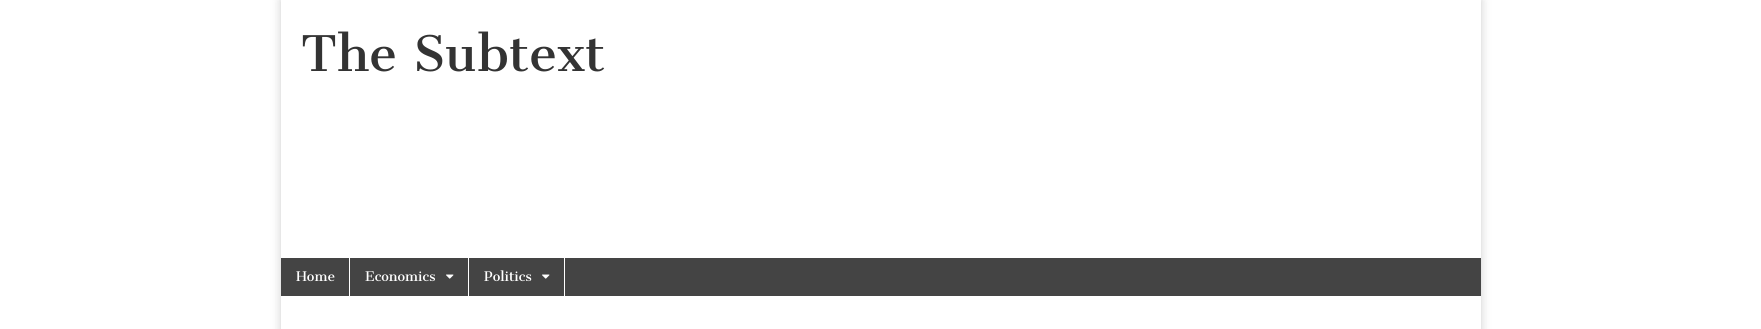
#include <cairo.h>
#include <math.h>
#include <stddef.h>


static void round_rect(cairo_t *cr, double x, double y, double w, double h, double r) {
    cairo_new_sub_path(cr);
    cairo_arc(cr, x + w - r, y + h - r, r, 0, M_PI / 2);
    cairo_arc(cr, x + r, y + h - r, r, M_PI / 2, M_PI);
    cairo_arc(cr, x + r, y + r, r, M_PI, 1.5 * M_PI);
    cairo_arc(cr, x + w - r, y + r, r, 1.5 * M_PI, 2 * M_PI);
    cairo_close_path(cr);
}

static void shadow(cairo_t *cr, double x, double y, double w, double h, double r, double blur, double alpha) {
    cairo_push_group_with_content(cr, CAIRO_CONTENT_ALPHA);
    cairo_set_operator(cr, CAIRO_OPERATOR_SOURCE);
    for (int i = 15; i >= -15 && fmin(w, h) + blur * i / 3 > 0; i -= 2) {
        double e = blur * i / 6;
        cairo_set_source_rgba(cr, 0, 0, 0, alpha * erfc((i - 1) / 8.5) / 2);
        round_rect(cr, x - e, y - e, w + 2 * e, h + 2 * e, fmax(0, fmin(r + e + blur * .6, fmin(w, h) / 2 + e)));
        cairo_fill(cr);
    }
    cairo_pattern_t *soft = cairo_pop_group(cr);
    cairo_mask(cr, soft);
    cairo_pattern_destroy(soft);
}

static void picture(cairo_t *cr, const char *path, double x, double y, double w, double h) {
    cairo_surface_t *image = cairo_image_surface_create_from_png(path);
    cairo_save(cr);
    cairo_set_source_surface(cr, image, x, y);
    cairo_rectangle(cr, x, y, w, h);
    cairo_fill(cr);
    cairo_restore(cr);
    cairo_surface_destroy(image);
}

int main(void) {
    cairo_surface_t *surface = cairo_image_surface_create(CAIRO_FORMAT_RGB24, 1761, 329);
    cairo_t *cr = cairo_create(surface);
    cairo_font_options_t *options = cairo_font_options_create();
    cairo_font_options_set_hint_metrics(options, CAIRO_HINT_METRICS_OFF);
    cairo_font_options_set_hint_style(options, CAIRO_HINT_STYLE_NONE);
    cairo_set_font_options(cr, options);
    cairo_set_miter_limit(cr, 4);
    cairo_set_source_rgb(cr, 1, 1, 1);
    cairo_paint(cr);
    cairo_save(cr);
    cairo_set_fill_rule(cr, CAIRO_FILL_RULE_EVEN_ODD);
    cairo_new_path(cr);
    cairo_move_to(cr, 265, 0);
    cairo_line_to(cr, 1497, 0);
    cairo_line_to(cr, 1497, 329);
    cairo_line_to(cr, 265, 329);
    cairo_close_path(cr);
    cairo_move_to(cr, 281, 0);
    cairo_line_to(cr, 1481, 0);
    cairo_line_to(cr, 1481, 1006);
    cairo_line_to(cr, 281, 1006);
    cairo_close_path(cr);
    cairo_clip(cr);
    cairo_set_source_rgb(cr, 0, 0, 0);
    shadow(cr, 281, 0, 1200, 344, 0, 5, 0.2);
    cairo_restore(cr);
    cairo_select_font_face(cr, "Cantata One", CAIRO_FONT_SLANT_NORMAL, CAIRO_FONT_WEIGHT_NORMAL);
    cairo_set_font_size(cr, 48);
    cairo_set_source_rgb(cr, 0.2, 0.2, 0.2);
    cairo_move_to(cr, 301, 71);
    cairo_show_text(cr, "The Subtext");
    cairo_set_source_rgb(cr, 0.267, 0.267, 0.267);
    cairo_rectangle(cr, 281, 258, 1200, 38);
    cairo_fill(cr);
    cairo_set_source_rgb(cr, 1, 1, 1);
    cairo_rectangle(cr, 349, 258, 1, 38);
    cairo_fill(cr);
    cairo_set_font_size(cr, 13);
    cairo_move_to(cr, 296, 281);
    cairo_show_text(cr, "Home");
    cairo_rectangle(cr, 468, 258, 1, 38);
    cairo_fill(cr);
    cairo_move_to(cr, 365, 281);
    cairo_show_text(cr, "Economics");
    picture(cr, "img1.png", 446, 274, 8, 5);
    cairo_rectangle(cr, 564, 258, 1, 38);
    cairo_fill(cr);
    cairo_move_to(cr, 484, 281);
    cairo_show_text(cr, "Politics");
    picture(cr, "img1.png", 542, 274, 8, 5);
    cairo_surface_write_to_png(surface, "page.png");
    cairo_font_options_destroy(options);
    cairo_destroy(cr);
    cairo_surface_destroy(surface);
    return 0;
}
